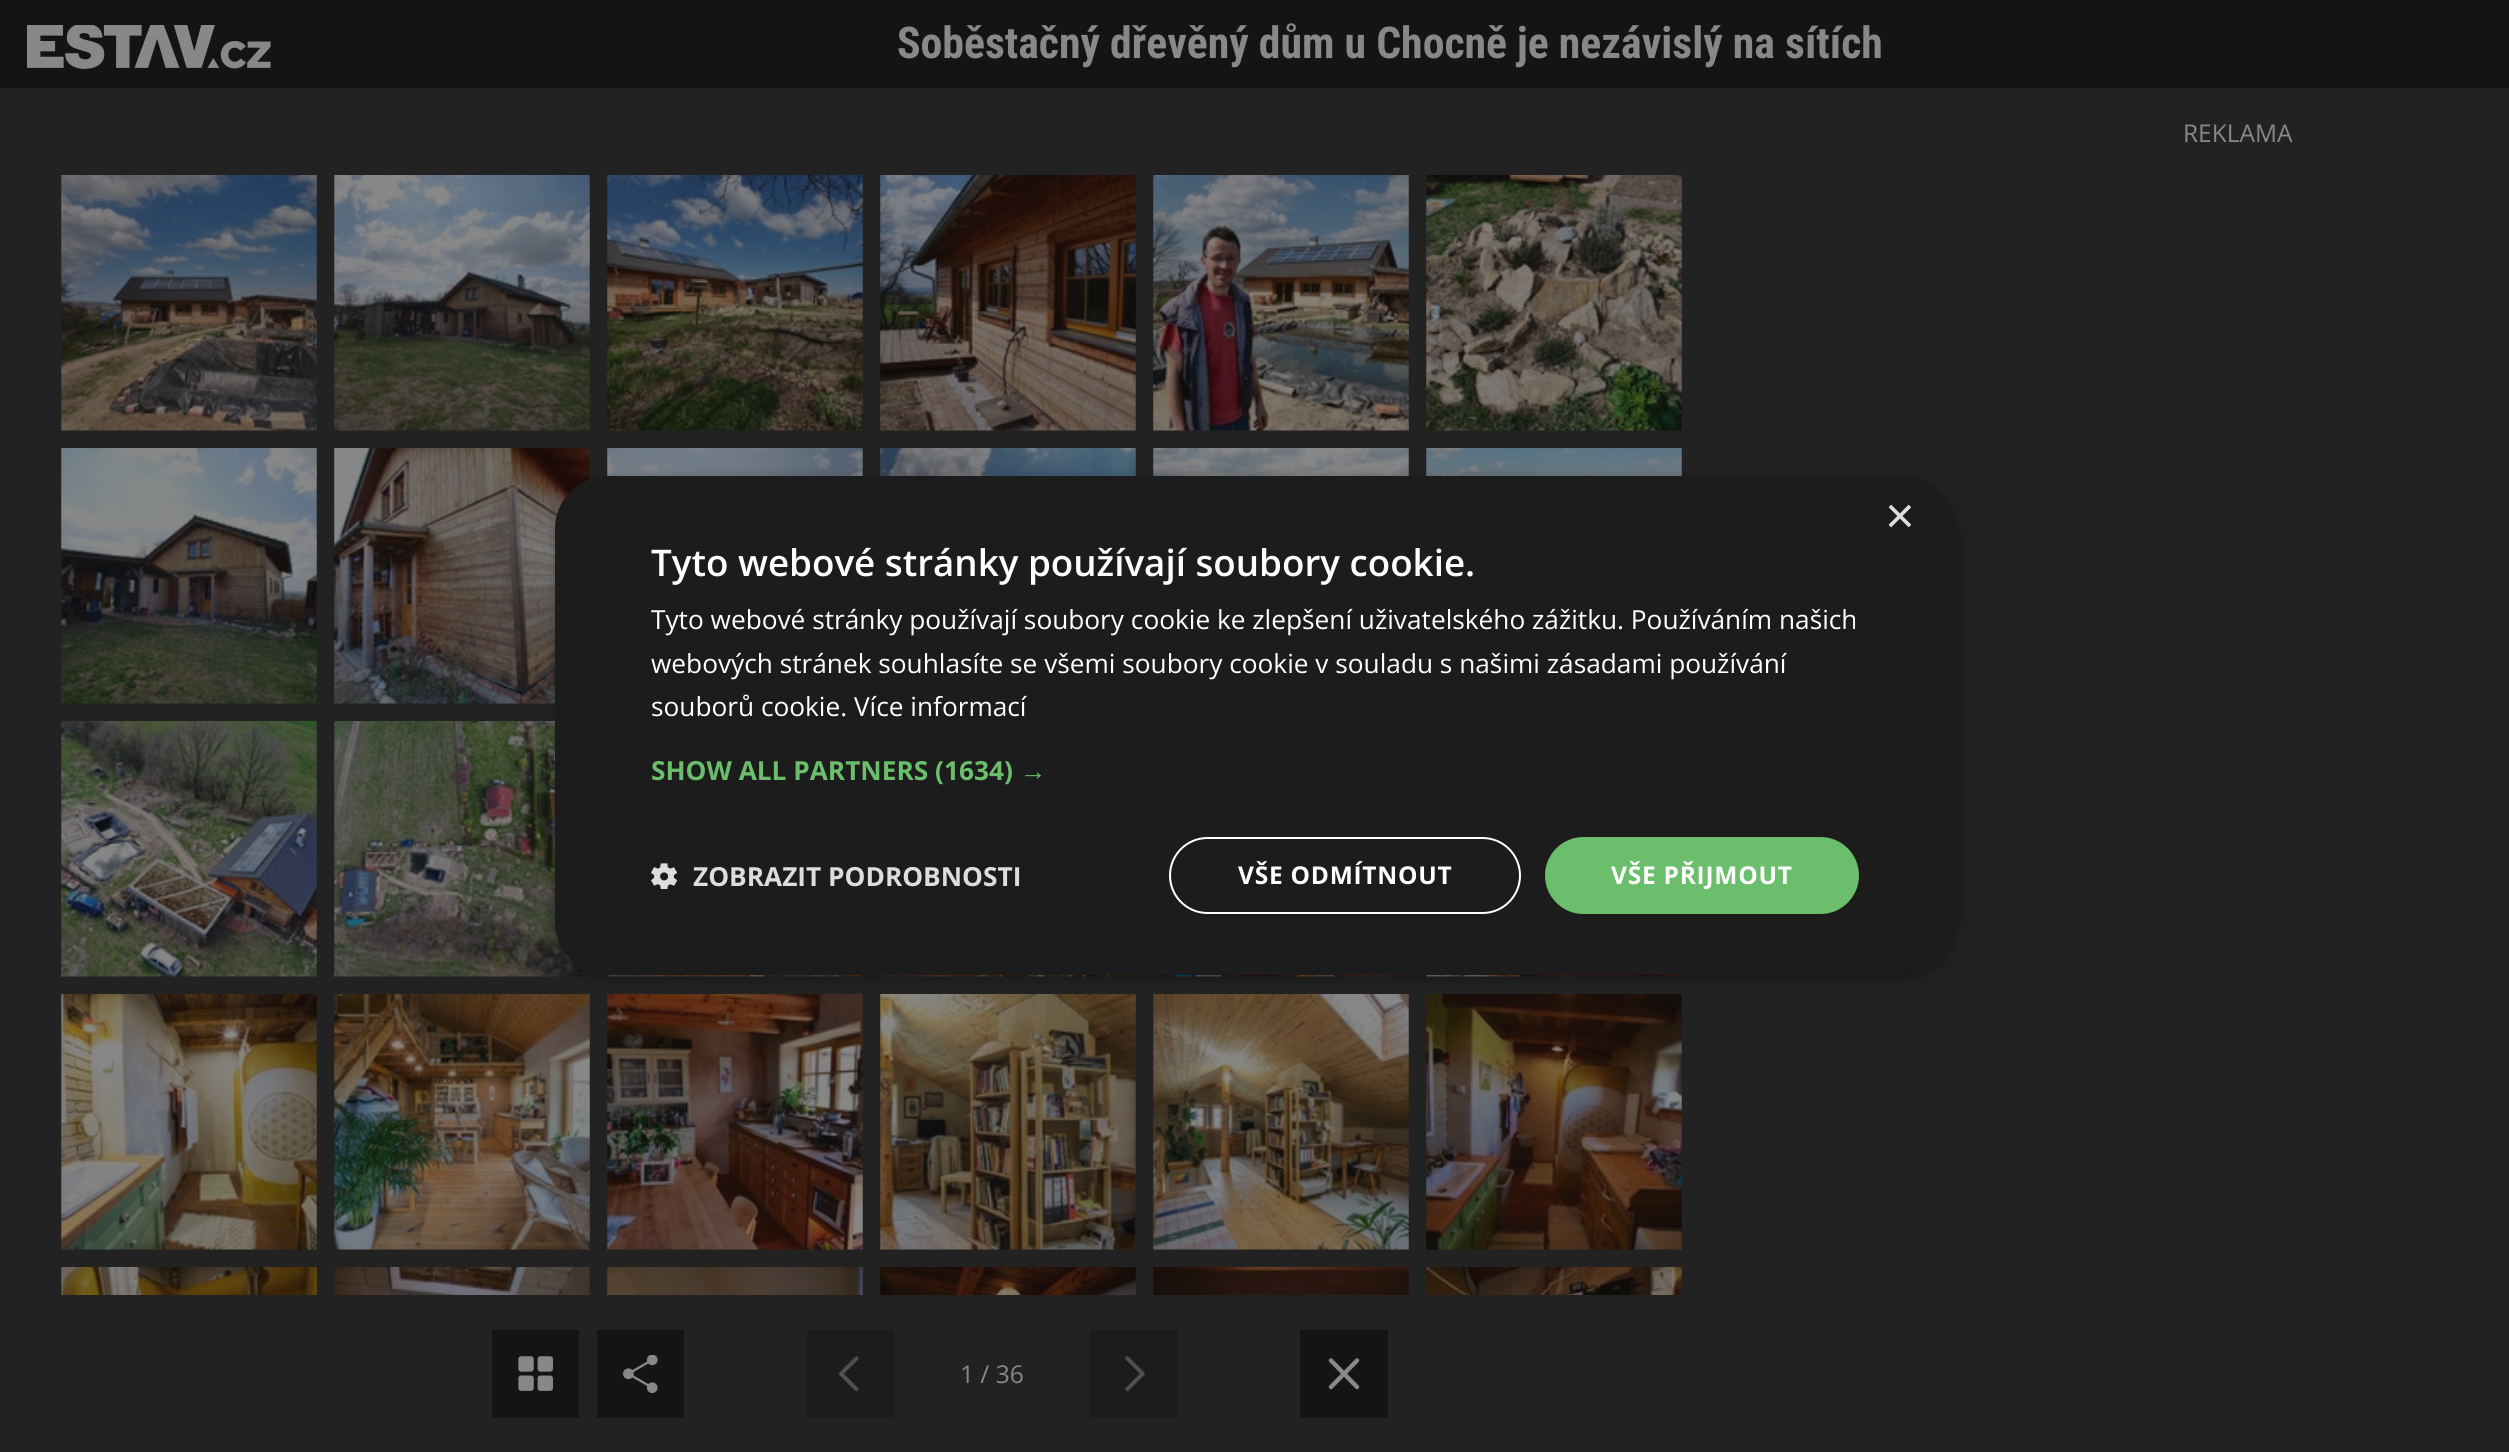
#include <cairo.h>
#include <math.h>
#include <stddef.h>


static void spaced_text(cairo_t *cr, double x, double y, const char *s, double letter, double word) {
    cairo_move_to(cr, x, y);
    while (*s) {
        char ch[5] = {0};
        int n = 0;
        do ch[n++] = *s++; while ((*s & 0xC0) == 0x80);
        cairo_show_text(cr, ch);
        cairo_rel_move_to(cr, letter + word * (*ch == ' '), 0);
    }
}

static void round_rect(cairo_t *cr, double x, double y, double w, double h, double r) {
    cairo_new_sub_path(cr);
    cairo_arc(cr, x + w - r, y + h - r, r, 0, M_PI / 2);
    cairo_arc(cr, x + r, y + h - r, r, M_PI / 2, M_PI);
    cairo_arc(cr, x + r, y + r, r, M_PI, 1.5 * M_PI);
    cairo_arc(cr, x + w - r, y + r, r, 1.5 * M_PI, 2 * M_PI);
    cairo_close_path(cr);
}

static void shadow(cairo_t *cr, double x, double y, double w, double h, double r, double blur, double alpha) {
    cairo_push_group_with_content(cr, CAIRO_CONTENT_ALPHA);
    cairo_set_operator(cr, CAIRO_OPERATOR_SOURCE);
    for (int i = 15; i >= -15 && fmin(w, h) + blur * i / 3 > 0; i -= 2) {
        double e = blur * i / 6;
        cairo_set_source_rgba(cr, 0, 0, 0, alpha * erfc((i - 1) / 8.5) / 2);
        round_rect(cr, x - e, y - e, w + 2 * e, h + 2 * e, fmax(0, fmin(r + e + blur * .6, fmin(w, h) / 2 + e)));
        cairo_fill(cr);
    }
    cairo_pattern_t *soft = cairo_pop_group(cr);
    cairo_mask(cr, soft);
    cairo_pattern_destroy(soft);
}

static void picture(cairo_t *cr, const char *path, double x, double y, double w, double h) {
    cairo_surface_t *image = cairo_image_surface_create_from_png(path);
    cairo_save(cr);
    cairo_set_source_surface(cr, image, x, y);
    cairo_rectangle(cr, x, y, w, h);
    cairo_fill(cr);
    cairo_restore(cr);
    cairo_surface_destroy(image);
}

int main(void) {
    cairo_surface_t *surface = cairo_image_surface_create(CAIRO_FORMAT_RGB24, 2509, 1452);
    cairo_t *cr = cairo_create(surface);
    cairo_font_options_t *options = cairo_font_options_create();
    cairo_font_options_set_hint_metrics(options, CAIRO_HINT_METRICS_OFF);
    cairo_font_options_set_hint_style(options, CAIRO_HINT_STYLE_NONE);
    cairo_set_font_options(cr, options);
    cairo_set_miter_limit(cr, 4);
    cairo_set_source_rgb(cr, 0.133, 0.133, 0.133);
    cairo_paint(cr);
    cairo_set_source_rgb(cr, 0.082, 0.082, 0.082);
    cairo_rectangle(cr, 0, 0, 2509, 88);
    cairo_fill(cr);
    picture(cr, "img1.png", 27, 25, 244, 44);
    cairo_select_font_face(cr, "Roboto Condensed", CAIRO_FONT_SLANT_NORMAL, CAIRO_FONT_WEIGHT_BOLD);
    cairo_set_font_size(cr, 43.75);
    cairo_set_source_rgb(cr, 0.533, 0.533, 0.533);
    cairo_move_to(cr, 897, 58);
    cairo_show_text(cr, "Soběstačný dřevěný dům u Chocně je nezávislý na sítích");
    cairo_select_font_face(cr, "Open Sans", CAIRO_FONT_SLANT_NORMAL, CAIRO_FONT_WEIGHT_NORMAL);
    cairo_set_font_size(cr, 24.5);
    cairo_move_to(cr, 2183, 142);
    cairo_show_text(cr, "REKLAMA");
    picture(cr, "img2.png", 61, 175, 256, 256);
    picture(cr, "img3.png", 334, 175, 256, 256);
    picture(cr, "img4.png", 607, 175, 256, 256);
    picture(cr, "img5.png", 880, 175, 256, 256);
    picture(cr, "img6.png", 1153, 175, 256, 256);
    picture(cr, "img7.png", 1426, 175, 256, 256);
    picture(cr, "img8.png", 61, 448, 256, 256);
    picture(cr, "img9.png", 334, 448, 256, 256);
    picture(cr, "img10.png", 607, 448, 256, 29);
    picture(cr, "img11.png", 880, 448, 256, 28);
    picture(cr, "img12.png", 1153, 448, 256, 28);
    picture(cr, "img13.png", 1426, 448, 256, 28);
    picture(cr, "img14.png", 61, 721, 256, 256);
    picture(cr, "img15.png", 334, 721, 256, 256);
    picture(cr, "img16.png", 607, 974, 256, 3);
    picture(cr, "img17.png", 880, 975, 256, 2);
    picture(cr, "img18.png", 1153, 975, 256, 2);
    picture(cr, "img19.png", 1426, 975, 256, 2);
    picture(cr, "img20.png", 61, 994, 256, 256);
    picture(cr, "img21.png", 334, 994, 256, 256);
    picture(cr, "img22.png", 607, 994, 256, 256);
    picture(cr, "img23.png", 880, 994, 256, 256);
    picture(cr, "img24.png", 1153, 994, 256, 256);
    picture(cr, "img25.png", 1426, 994, 256, 256);
    picture(cr, "img26.png", 61, 1267, 256, 28);
    picture(cr, "img27.png", 334, 1267, 256, 28);
    picture(cr, "img28.png", 607, 1267, 256, 28);
    picture(cr, "img29.png", 880, 1267, 256, 28);
    picture(cr, "img30.png", 1153, 1267, 256, 28);
    picture(cr, "img31.png", 1426, 1267, 256, 28);
    cairo_set_source_rgb(cr, 0.082, 0.082, 0.082);
    cairo_rectangle(cr, 492, 1330, 87, 88);
    cairo_fill(cr);
    picture(cr, "img32.png", 518, 1356, 35, 35);
    cairo_rectangle(cr, 597, 1330, 87, 88);
    cairo_fill(cr);
    picture(cr, "img33.png", 623, 1355, 35, 38);
    cairo_set_source_rgb(cr, 0.11, 0.11, 0.11);
    cairo_rectangle(cr, 807, 1330, 87, 88);
    cairo_fill(cr);
    picture(cr, "img34.png", 839, 1356, 20, 35);
    cairo_set_source_rgb(cr, 0.533, 0.533, 0.533);
    cairo_move_to(cr, 960, 1383);
    cairo_show_text(cr, "1 / 36");
    cairo_set_source_rgb(cr, 0.11, 0.11, 0.11);
    cairo_rectangle(cr, 1090, 1330, 88, 88);
    cairo_fill(cr);
    picture(cr, "img35.png", 1125, 1356, 20, 35);
    cairo_set_source_rgb(cr, 0.082, 0.082, 0.082);
    cairo_rectangle(cr, 1300, 1330, 88, 88);
    cairo_fill(cr);
    cairo_new_path(cr);
    cairo_move_to(cr, 1331, 1360.5);
    cairo_line_to(cr, 1357, 1387);
    cairo_move_to(cr, 1357, 1360.5);
    cairo_line_to(cr, 1331, 1387);
    cairo_set_source_rgb(cr, 0.533, 0.533, 0.533);
    cairo_set_line_width(cr, 4.4);
    cairo_set_line_cap(cr, CAIRO_LINE_CAP_ROUND);
    cairo_stroke(cr);
    cairo_set_source_rgb(cr, 0, 0, 0);
    shadow(cr, 557, 480, 1400, 498, 53, 7, 0.35);
    cairo_set_source_rgb(cr, 0.11, 0.11, 0.11);
    round_rect(cr, 555, 476, 1400, 499, 53);
    cairo_fill(cr);
    cairo_select_font_face(cr, "Liberation Sans", CAIRO_FONT_SLANT_NORMAL, CAIRO_FONT_WEIGHT_NORMAL);
    cairo_set_font_size(cr, 51);
    cairo_set_source_rgb(cr, 0.867, 0.867, 0.867);
    cairo_move_to(cr, 1885, 533);
    cairo_show_text(cr, "×");
    cairo_select_font_face(cr, "Open Sans SemiBold", CAIRO_FONT_SLANT_NORMAL, CAIRO_FONT_WEIGHT_NORMAL);
    cairo_set_font_size(cr, 36.75);
    cairo_set_source_rgb(cr, 1, 1, 1);
    cairo_move_to(cr, 651, 576);
    cairo_show_text(cr, "Tyto webové stránky používají soubory cookie.");
    cairo_select_font_face(cr, "Open Sans", CAIRO_FONT_SLANT_NORMAL, CAIRO_FONT_WEIGHT_NORMAL);
    cairo_set_font_size(cr, 26.25);
    cairo_move_to(cr, 651, 629);
    cairo_show_text(cr, "Tyto webové stránky používají soubory cookie ke zlepšení uživatelského zážitku. Používáním našich");
    cairo_move_to(cr, 651, 673);
    cairo_show_text(cr, "webových stránek souhlasíte se všemi soubory cookie v souladu s našimi zásadami používání");
    cairo_move_to(cr, 651, 716);
    cairo_show_text(cr, "souborů cookie. Více informací");
    cairo_select_font_face(cr, "Open Sans", CAIRO_FONT_SLANT_NORMAL, CAIRO_FONT_WEIGHT_BOLD);
    cairo_set_source_rgb(cr, 0.42, 0.745, 0.42);
    cairo_move_to(cr, 651, 780);
    cairo_show_text(cr, "SHOW ALL PARTNERS (1634)");
    cairo_select_font_face(cr, "Liberation Sans", CAIRO_FONT_SLANT_NORMAL, CAIRO_FONT_WEIGHT_BOLD);
    cairo_move_to(cr, 1020, 780);
    cairo_show_text(cr, "→");
    picture(cr, "img36.png", 651, 863, 26, 26);
    cairo_select_font_face(cr, "Open Sans", CAIRO_FONT_SLANT_NORMAL, CAIRO_FONT_WEIGHT_BOLD);
    cairo_set_source_rgb(cr, 0.867, 0.867, 0.867);
    cairo_move_to(cr, 693, 886);
    cairo_show_text(cr, "ZOBRAZIT PODROBNOSTI");
    round_rect(cr, 1170, 838, 350, 75, 37.5);
    cairo_set_source_rgb(cr, 1, 1, 1);
    cairo_set_line_width(cr, 2);
    cairo_set_line_cap(cr, CAIRO_LINE_CAP_BUTT);
    cairo_stroke(cr);
    cairo_set_font_size(cr, 24.5);
    spaced_text(cr, 1238, 884, "VŠE ODMÍTNOUT", 0.75, 0);
    cairo_set_source_rgb(cr, 0.42, 0.745, 0.42);
    round_rect(cr, 1545, 837, 314, 77, 38.5);
    cairo_fill(cr);
    cairo_set_source_rgb(cr, 1, 1, 1);
    spaced_text(cr, 1611, 884, "VŠE PŘIJMOUT", 0.75, 0);
    cairo_surface_write_to_png(surface, "page.png");
    cairo_font_options_destroy(options);
    cairo_destroy(cr);
    cairo_surface_destroy(surface);
    return 0;
}
